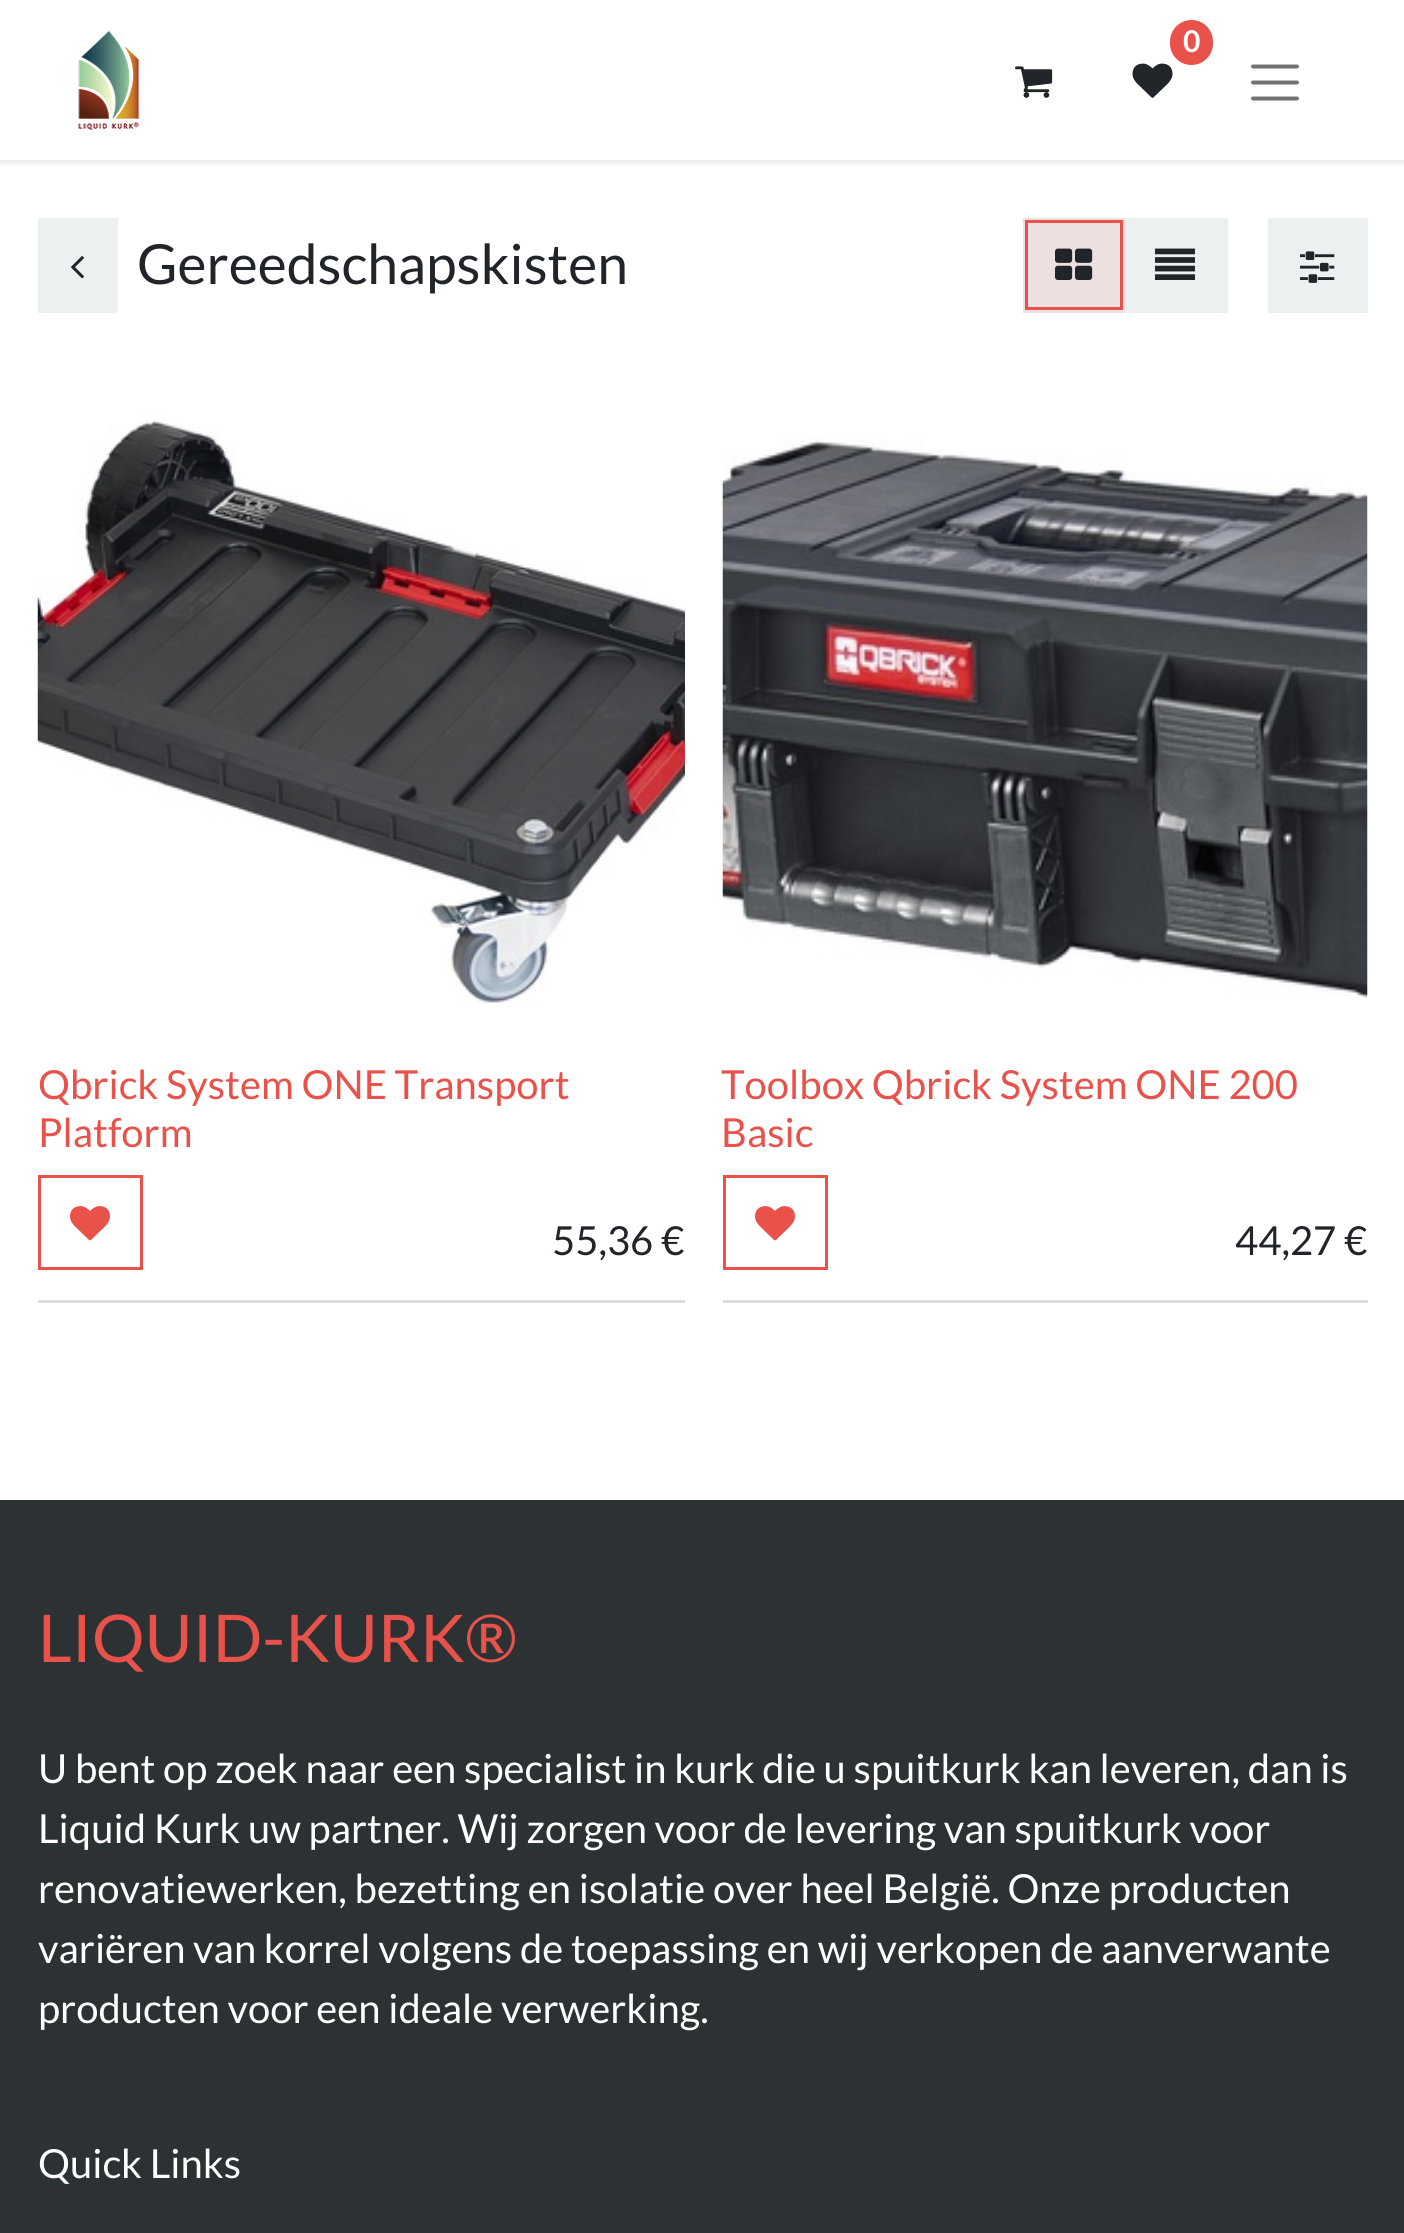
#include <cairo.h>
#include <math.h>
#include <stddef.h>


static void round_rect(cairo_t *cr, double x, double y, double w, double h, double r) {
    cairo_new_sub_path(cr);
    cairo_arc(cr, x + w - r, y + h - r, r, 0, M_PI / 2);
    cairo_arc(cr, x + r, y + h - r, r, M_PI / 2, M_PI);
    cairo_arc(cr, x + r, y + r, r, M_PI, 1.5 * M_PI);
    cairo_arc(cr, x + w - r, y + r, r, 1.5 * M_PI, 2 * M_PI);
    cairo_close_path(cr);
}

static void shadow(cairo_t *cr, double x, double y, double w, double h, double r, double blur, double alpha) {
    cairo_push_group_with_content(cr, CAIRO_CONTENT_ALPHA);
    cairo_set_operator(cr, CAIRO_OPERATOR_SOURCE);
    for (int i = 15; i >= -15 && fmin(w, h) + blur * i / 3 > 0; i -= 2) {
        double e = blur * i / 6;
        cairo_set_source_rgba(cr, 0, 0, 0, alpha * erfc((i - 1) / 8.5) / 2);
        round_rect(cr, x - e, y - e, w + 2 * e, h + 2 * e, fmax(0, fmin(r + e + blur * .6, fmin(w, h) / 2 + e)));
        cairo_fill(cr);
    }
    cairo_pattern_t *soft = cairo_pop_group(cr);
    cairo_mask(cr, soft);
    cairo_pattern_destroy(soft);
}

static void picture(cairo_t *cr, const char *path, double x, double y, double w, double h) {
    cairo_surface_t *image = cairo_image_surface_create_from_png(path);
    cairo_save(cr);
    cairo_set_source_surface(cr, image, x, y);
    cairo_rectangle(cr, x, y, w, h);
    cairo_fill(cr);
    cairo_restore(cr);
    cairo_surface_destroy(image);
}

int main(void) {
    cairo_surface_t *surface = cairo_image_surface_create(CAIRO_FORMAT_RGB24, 1404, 2233);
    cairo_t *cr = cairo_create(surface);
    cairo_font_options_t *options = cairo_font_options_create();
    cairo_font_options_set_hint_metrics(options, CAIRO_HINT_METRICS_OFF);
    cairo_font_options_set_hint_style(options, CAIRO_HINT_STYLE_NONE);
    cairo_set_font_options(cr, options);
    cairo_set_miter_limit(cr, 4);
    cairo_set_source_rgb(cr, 1, 1, 1);
    cairo_paint(cr);
    cairo_save(cr);
    cairo_rectangle(cr, 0, 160, 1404, 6);
    cairo_clip(cr);
    cairo_set_source_rgb(cr, 0, 0, 0);
    shadow(cr, 0, 3, 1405, 160, 0, 4, 0.1);
    cairo_restore(cr);
    picture(cr, "img1.png", 78, 30, 61, 100);
    picture(cr, "img2.png", 1132, 63, 41, 35);
    cairo_set_source_rgb(cr, 0.914, 0.322, 0.294);
    round_rect(cr, 1170, 20, 43, 45, 21.5);
    cairo_fill(cr);
    cairo_select_font_face(cr, "Lato", CAIRO_FONT_SLANT_NORMAL, CAIRO_FONT_WEIGHT_BOLD);
    cairo_set_font_size(cr, 30);
    cairo_set_source_rgb(cr, 1, 1, 1);
    cairo_move_to(cr, 1183, 52);
    cairo_show_text(cr, "0");
    picture(cr, "img3.png", 1015, 66, 38, 32);
    cairo_new_path(cr);
    cairo_move_to(cr, 1253, 66.5);
    cairo_line_to(cr, 1297, 66.5);
    cairo_move_to(cr, 1253, 82.5);
    cairo_line_to(cr, 1297, 82.5);
    cairo_move_to(cr, 1253, 98.5);
    cairo_line_to(cr, 1297, 98.5);
    cairo_set_source_rgb(cr, 0.451, 0.451, 0.451);
    cairo_set_line_width(cr, 4);
    cairo_set_line_cap(cr, CAIRO_LINE_CAP_ROUND);
    cairo_stroke(cr);
    cairo_set_source_rgb(cr, 0.925, 0.941, 0.945);
    cairo_rectangle(cr, 38, 218, 80, 95);
    cairo_fill(cr);
    picture(cr, "img4.png", 71, 256, 13, 23);
    cairo_select_font_face(cr, "Lato", CAIRO_FONT_SLANT_NORMAL, CAIRO_FONT_WEIGHT_NORMAL);
    cairo_set_font_size(cr, 55.25);
    cairo_set_source_rgb(cr, 0.129, 0.145, 0.161);
    cairo_move_to(cr, 137, 284);
    cairo_show_text(cr, "Gereedschapskisten");
    cairo_set_source_rgb(cr, 0.925, 0.878, 0.878);
    cairo_rectangle(cr, 1023, 218, 102, 95);
    cairo_fill(cr);
    cairo_rectangle(cr, 1026.5, 221.5, 95, 87);
    cairo_set_source_rgb(cr, 0.914, 0.322, 0.294);
    cairo_set_line_width(cr, 3);
    cairo_set_line_cap(cr, CAIRO_LINE_CAP_BUTT);
    cairo_stroke(cr);
    picture(cr, "img5.png", 1055, 248, 38, 32);
    cairo_set_source_rgb(cr, 0.925, 0.941, 0.945);
    cairo_rectangle(cr, 1125, 218, 103, 95);
    cairo_fill(cr);
    picture(cr, "img6.png", 1155, 248, 40, 32);
    cairo_rectangle(cr, 1268, 218, 100, 95);
    cairo_fill(cr);
    picture(cr, "img7.png", 1300, 251, 35, 32);
    cairo_set_source_rgb(cr, 0.871, 0.871, 0.875);
    cairo_rectangle(cr, 38, 1300, 647, 3);
    cairo_fill(cr);
    picture(cr, "img8.png", 37, 413, 648, 592);
    cairo_set_font_size(cr, 40);
    cairo_set_source_rgb(cr, 0.914, 0.322, 0.294);
    cairo_move_to(cr, 38, 1099);
    cairo_show_text(cr, "Qbrick System ONE Transport");
    cairo_move_to(cr, 38, 1147);
    cairo_show_text(cr, "Platform");
    cairo_rectangle(cr, 39.5, 1176.5, 102, 92);
    cairo_stroke(cr);
    picture(cr, "img9.png", 70, 1206, 40, 35);
    cairo_set_source_rgb(cr, 0.129, 0.145, 0.161);
    cairo_move_to(cr, 552, 1255);
    cairo_show_text(cr, "55,36 €");
    cairo_set_source_rgb(cr, 0.871, 0.871, 0.875);
    cairo_rectangle(cr, 723, 1300, 645, 3);
    cairo_fill(cr);
    picture(cr, "img10.png", 722, 438, 646, 560);
    cairo_set_source_rgb(cr, 0.914, 0.322, 0.294);
    cairo_move_to(cr, 721, 1099);
    cairo_show_text(cr, "Toolbox Qbrick System ONE 200");
    cairo_move_to(cr, 721, 1147);
    cairo_show_text(cr, "Basic");
    cairo_rectangle(cr, 724.5, 1176.5, 102, 92);
    cairo_stroke(cr);
    picture(cr, "img9.png", 755, 1206, 40, 35);
    cairo_set_source_rgb(cr, 0.129, 0.145, 0.161);
    cairo_move_to(cr, 1235, 1255);
    cairo_show_text(cr, "44,27 €");
    cairo_set_source_rgb(cr, 0.173, 0.192, 0.204);
    cairo_rectangle(cr, 0, 1500, 1404, 733);
    cairo_fill(cr);
    cairo_set_font_size(cr, 65.75);
    cairo_set_source_rgb(cr, 0.914, 0.322, 0.294);
    cairo_move_to(cr, 38, 1662);
    cairo_show_text(cr, "LIQUID-KURK®");
    cairo_set_font_size(cr, 40);
    cairo_set_source_rgb(cr, 1, 1, 1);
    cairo_move_to(cr, 38, 1783);
    cairo_show_text(cr, "U bent op zoek naar een specialist in kurk die u spuitkurk kan leveren, dan is");
    cairo_move_to(cr, 38, 1843);
    cairo_show_text(cr, "Liquid Kurk uw partner. Wij zorgen voor de levering van spuitkurk voor");
    cairo_move_to(cr, 38, 1903);
    cairo_show_text(cr, "renovatiewerken, bezetting en isolatie over heel België. Onze producten");
    cairo_move_to(cr, 38, 1963);
    cairo_show_text(cr, "variëren van korrel volgens de toepassing en wij verkopen de aanverwante");
    cairo_move_to(cr, 38, 2023);
    cairo_show_text(cr, "producten voor een ideale verwerking.");
    cairo_move_to(cr, 38, 2178);
    cairo_show_text(cr, "Quick Links");
    cairo_surface_write_to_png(surface, "page.png");
    cairo_font_options_destroy(options);
    cairo_destroy(cr);
    cairo_surface_destroy(surface);
    return 0;
}
